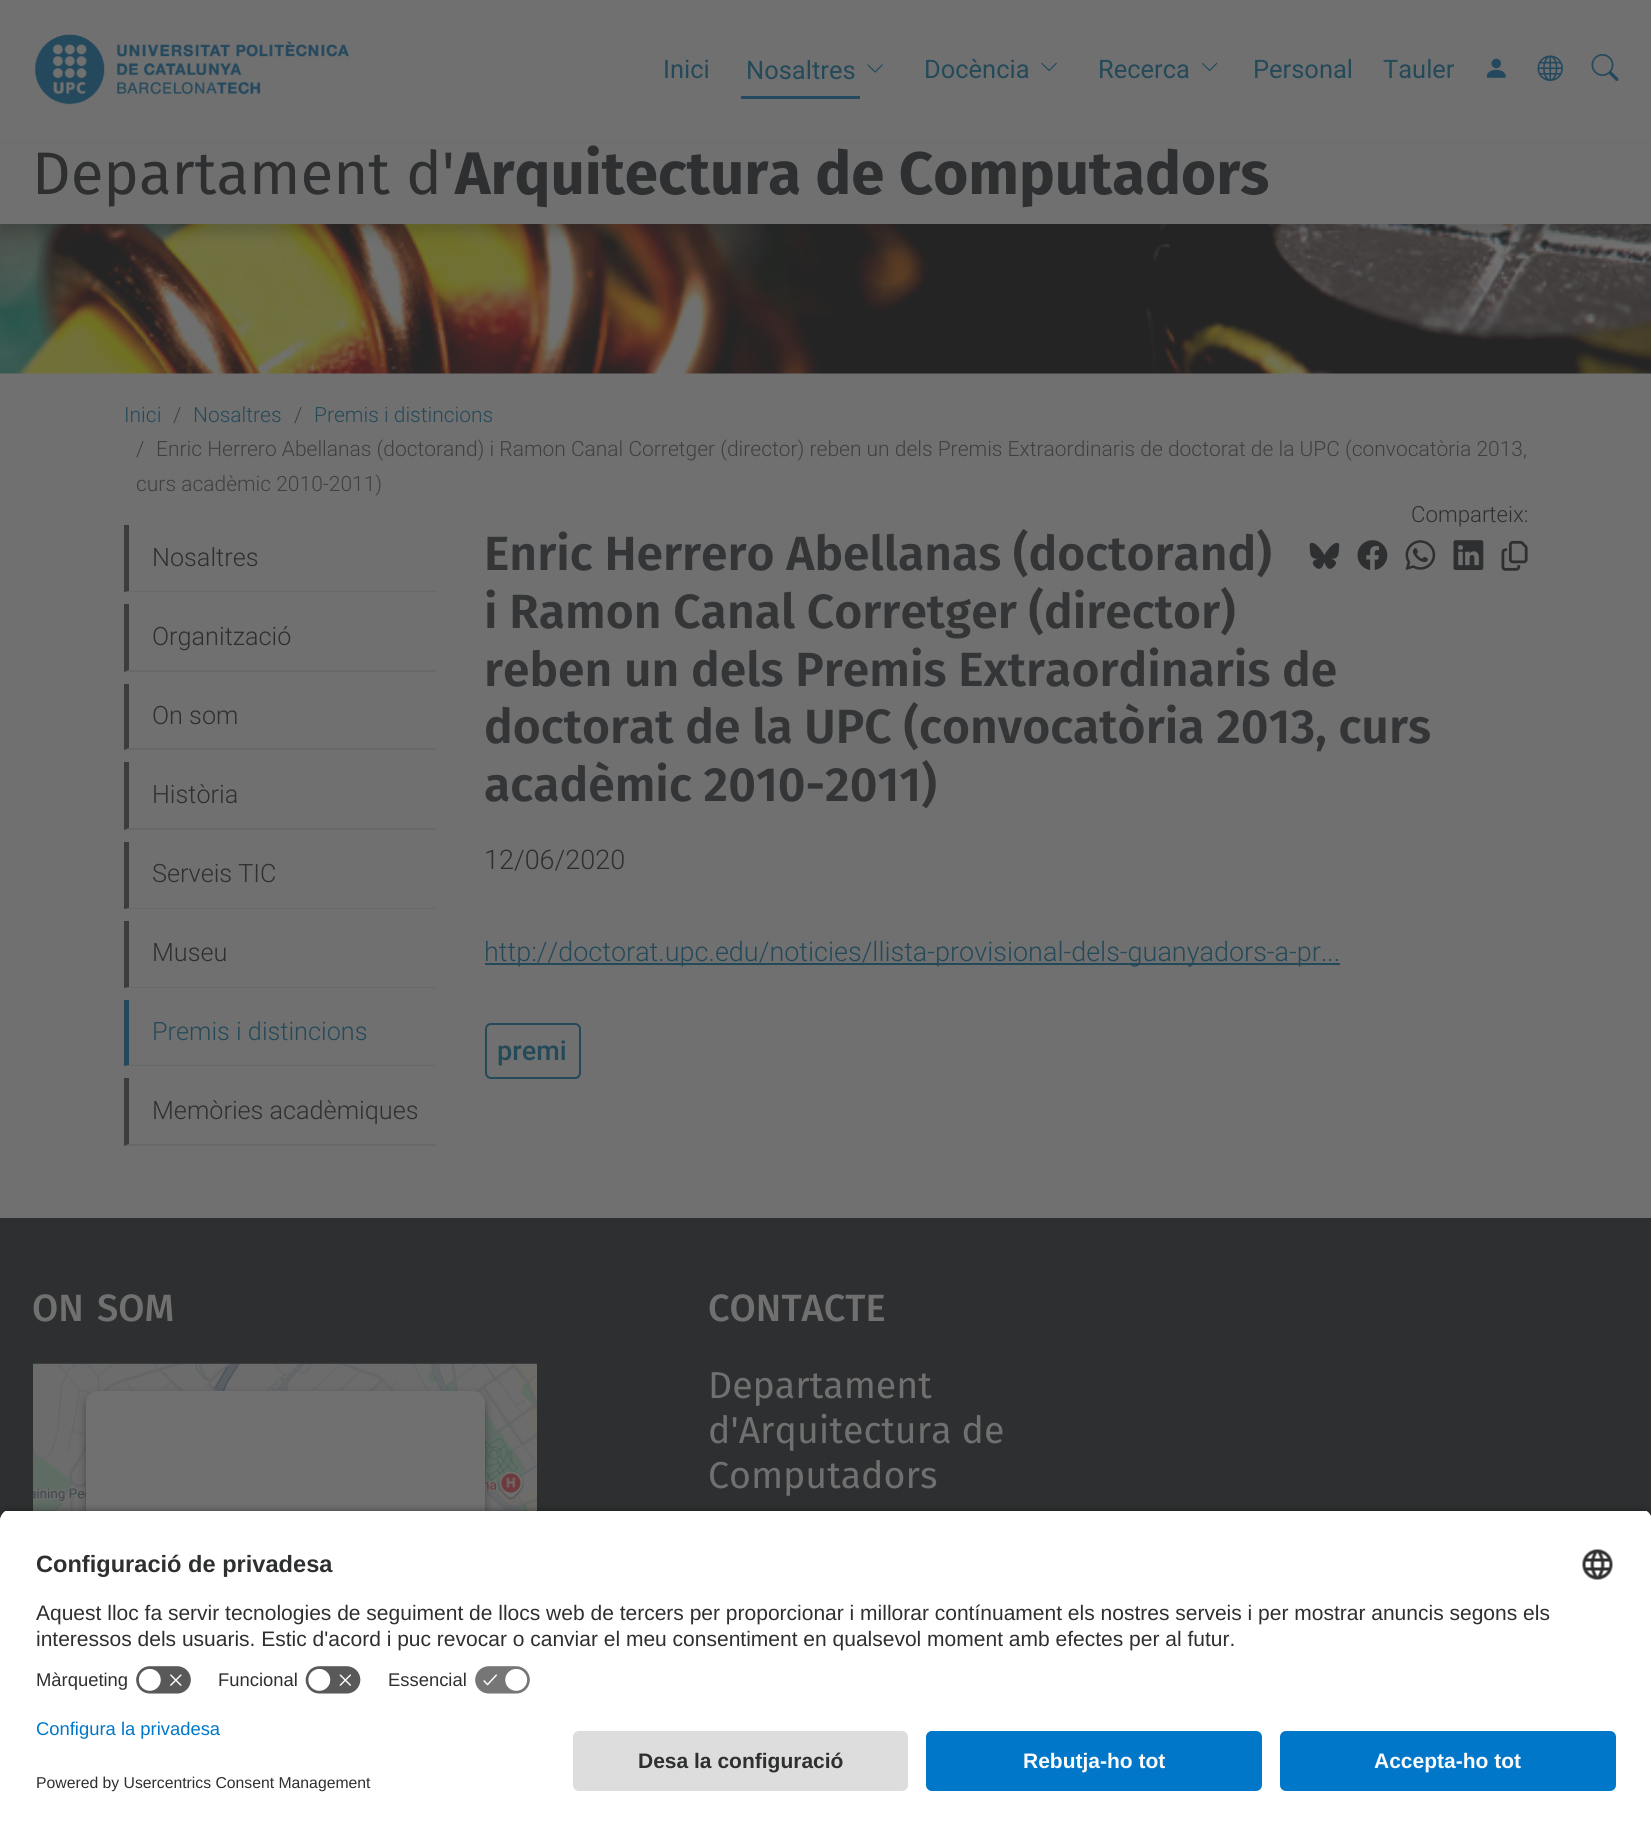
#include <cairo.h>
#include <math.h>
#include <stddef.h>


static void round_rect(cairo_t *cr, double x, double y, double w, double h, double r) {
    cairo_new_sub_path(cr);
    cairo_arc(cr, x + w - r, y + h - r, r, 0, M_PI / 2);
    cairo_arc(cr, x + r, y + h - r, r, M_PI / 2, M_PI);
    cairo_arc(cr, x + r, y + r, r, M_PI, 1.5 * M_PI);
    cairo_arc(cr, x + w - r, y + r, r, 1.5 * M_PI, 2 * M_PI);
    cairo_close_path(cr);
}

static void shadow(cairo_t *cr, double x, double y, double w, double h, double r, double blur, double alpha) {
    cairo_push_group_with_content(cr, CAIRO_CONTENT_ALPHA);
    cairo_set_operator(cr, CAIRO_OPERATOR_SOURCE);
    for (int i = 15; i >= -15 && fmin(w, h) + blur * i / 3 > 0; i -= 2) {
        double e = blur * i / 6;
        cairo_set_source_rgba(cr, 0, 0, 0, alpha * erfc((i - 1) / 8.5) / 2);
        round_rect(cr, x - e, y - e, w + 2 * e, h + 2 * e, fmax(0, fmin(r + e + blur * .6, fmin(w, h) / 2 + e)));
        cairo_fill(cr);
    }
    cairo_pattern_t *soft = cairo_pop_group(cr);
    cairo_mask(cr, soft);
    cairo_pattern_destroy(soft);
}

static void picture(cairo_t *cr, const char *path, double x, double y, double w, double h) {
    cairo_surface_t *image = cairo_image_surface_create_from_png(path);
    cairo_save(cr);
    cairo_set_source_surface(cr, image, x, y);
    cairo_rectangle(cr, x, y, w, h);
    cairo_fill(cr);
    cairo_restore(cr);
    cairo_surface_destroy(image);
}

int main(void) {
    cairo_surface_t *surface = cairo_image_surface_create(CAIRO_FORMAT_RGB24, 1651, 1827);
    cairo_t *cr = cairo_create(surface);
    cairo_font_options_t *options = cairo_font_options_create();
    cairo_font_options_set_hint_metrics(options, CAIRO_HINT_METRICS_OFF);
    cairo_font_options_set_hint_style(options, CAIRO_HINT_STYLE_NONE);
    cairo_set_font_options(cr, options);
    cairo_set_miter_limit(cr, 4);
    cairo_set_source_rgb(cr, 0.439, 0.439, 0.439);
    cairo_paint(cr);
    picture(cr, "img1.png", 34, 34, 316, 71);
    cairo_select_font_face(cr, "Roboto", CAIRO_FONT_SLANT_NORMAL, CAIRO_FONT_WEIGHT_NORMAL);
    cairo_set_font_size(cr, 25.5);
    cairo_set_source_rgb(cr, 0.141, 0.286, 0.349);
    cairo_move_to(cr, 663, 78);
    cairo_show_text(cr, "Inici");
    cairo_set_source_rgb(cr, 0.141, 0.286, 0.369);
    cairo_rectangle(cr, 741, 96, 119, 3);
    cairo_fill(cr);
    cairo_set_source_rgb(cr, 0.141, 0.286, 0.349);
    cairo_move_to(cr, 746, 79);
    cairo_show_text(cr, "Nosaltres");
    picture(cr, "img2.png", 867, 64, 16, 9);
    cairo_move_to(cr, 924, 78);
    cairo_show_text(cr, "Docència");
    picture(cr, "img3.png", 1041, 62, 16, 10);
    cairo_move_to(cr, 1098, 78);
    cairo_show_text(cr, "Recerca");
    picture(cr, "img4.png", 1201, 62, 17, 10);
    cairo_move_to(cr, 1253, 78);
    cairo_show_text(cr, "Personal");
    cairo_move_to(cr, 1383, 78);
    cairo_show_text(cr, "Tauler");
    picture(cr, "img5.png", 1486, 58, 20, 20);
    picture(cr, "img6.png", 1537, 55, 26, 26);
    picture(cr, "img7.png", 1591, 54, 28, 27);
    picture(cr, "img8.png", 0, 224, 1651, 150);
    cairo_set_source_rgb(cr, 0.141, 0.141, 0.141);
    shadow(cr, 0, 149, 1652, 85, 0, 6, 0.2);
    cairo_set_source_rgb(cr, 0.439, 0.439, 0.439);
    cairo_rectangle(cr, 0, 143, 1651, 81);
    cairo_fill(cr);
    cairo_select_font_face(cr, "Fira Sans", CAIRO_FONT_SLANT_NORMAL, CAIRO_FONT_WEIGHT_NORMAL);
    cairo_set_font_size(cr, 60);
    cairo_set_source_rgb(cr, 0.18, 0.184, 0.188);
    cairo_move_to(cr, 32, 194);
    cairo_show_text(cr, "Departament d'");
    cairo_select_font_face(cr, "Fira Sans", CAIRO_FONT_SLANT_NORMAL, CAIRO_FONT_WEIGHT_BOLD);
    cairo_move_to(cr, 455, 194);
    cairo_show_text(cr, "Arquitectura de Computadors");
    cairo_select_font_face(cr, "Roboto Light", CAIRO_FONT_SLANT_NORMAL, CAIRO_FONT_WEIGHT_NORMAL);
    cairo_set_font_size(cr, 21);
    cairo_set_source_rgb(cr, 0.141, 0.286, 0.349);
    cairo_move_to(cr, 124, 422);
    cairo_show_text(cr, "Inici");
    cairo_set_source_rgb(cr, 0.243, 0.247, 0.251);
    cairo_move_to(cr, 173, 422);
    cairo_show_text(cr, "/");
    cairo_set_source_rgb(cr, 0.141, 0.286, 0.349);
    cairo_move_to(cr, 193, 422);
    cairo_show_text(cr, "Nosaltres");
    cairo_set_source_rgb(cr, 0.243, 0.247, 0.251);
    cairo_move_to(cr, 294, 422);
    cairo_show_text(cr, "/");
    cairo_set_source_rgb(cr, 0.141, 0.286, 0.349);
    cairo_move_to(cr, 314, 422);
    cairo_show_text(cr, "Premis i distincions");
    cairo_set_source_rgb(cr, 0.243, 0.247, 0.251);
    cairo_move_to(cr, 136, 456);
    cairo_show_text(cr, "/");
    cairo_move_to(cr, 156, 456);
    cairo_show_text(cr, "Enric Herrero Abellanas (doctorand) i Ramon Canal Corretger (director) reben un dels Premis Extraordinaris de doctorat de la UPC (convocatòria 2013,");
    cairo_move_to(cr, 136, 491);
    cairo_show_text(cr, "curs acadèmic 2010-2011)");
    cairo_set_source_rgb(cr, 0.4, 0.408, 0.412);
    cairo_new_path(cr);
    cairo_move_to(cr, 436, 592);
    cairo_line_to(cr, 124, 592);
    cairo_line_to(cr, 129, 591);
    cairo_line_to(cr, 436, 591);
    cairo_close_path(cr);
    cairo_fill(cr);
    cairo_set_source_rgb(cr, 0.227, 0.235, 0.243);
    cairo_new_path(cr);
    cairo_move_to(cr, 124, 592);
    cairo_line_to(cr, 124, 525);
    cairo_line_to(cr, 129, 525);
    cairo_line_to(cr, 129, 591);
    cairo_close_path(cr);
    cairo_fill(cr);
    cairo_set_font_size(cr, 25.25);
    cairo_set_source_rgb(cr, 0.18, 0.184, 0.188);
    cairo_move_to(cr, 152, 566);
    cairo_show_text(cr, "Nosaltres");
    cairo_set_source_rgb(cr, 0.4, 0.408, 0.412);
    cairo_new_path(cr);
    cairo_move_to(cr, 436, 672);
    cairo_line_to(cr, 124, 672);
    cairo_line_to(cr, 129, 670);
    cairo_line_to(cr, 436, 670);
    cairo_close_path(cr);
    cairo_fill(cr);
    cairo_set_source_rgb(cr, 0.227, 0.235, 0.243);
    cairo_new_path(cr);
    cairo_move_to(cr, 124, 672);
    cairo_line_to(cr, 124, 604);
    cairo_line_to(cr, 129, 604);
    cairo_line_to(cr, 129, 670);
    cairo_close_path(cr);
    cairo_fill(cr);
    cairo_set_source_rgb(cr, 0.18, 0.184, 0.188);
    cairo_move_to(cr, 152, 645);
    cairo_show_text(cr, "Organització");
    cairo_set_source_rgb(cr, 0.4, 0.408, 0.412);
    cairo_new_path(cr);
    cairo_move_to(cr, 436, 750);
    cairo_line_to(cr, 124, 750);
    cairo_line_to(cr, 129, 748);
    cairo_line_to(cr, 436, 748);
    cairo_close_path(cr);
    cairo_fill(cr);
    cairo_set_source_rgb(cr, 0.227, 0.235, 0.243);
    cairo_new_path(cr);
    cairo_move_to(cr, 124, 750);
    cairo_line_to(cr, 124, 684);
    cairo_line_to(cr, 129, 684);
    cairo_line_to(cr, 129, 748);
    cairo_close_path(cr);
    cairo_fill(cr);
    cairo_set_source_rgb(cr, 0.18, 0.184, 0.188);
    cairo_move_to(cr, 152, 724);
    cairo_show_text(cr, "On som");
    cairo_set_source_rgb(cr, 0.4, 0.408, 0.412);
    cairo_new_path(cr);
    cairo_move_to(cr, 436, 830);
    cairo_line_to(cr, 124, 830);
    cairo_line_to(cr, 129, 828);
    cairo_line_to(cr, 436, 828);
    cairo_close_path(cr);
    cairo_fill(cr);
    cairo_set_source_rgb(cr, 0.227, 0.235, 0.243);
    cairo_new_path(cr);
    cairo_move_to(cr, 124, 830);
    cairo_line_to(cr, 124, 762);
    cairo_line_to(cr, 129, 762);
    cairo_line_to(cr, 129, 828);
    cairo_close_path(cr);
    cairo_fill(cr);
    cairo_set_source_rgb(cr, 0.18, 0.184, 0.188);
    cairo_move_to(cr, 152, 803);
    cairo_show_text(cr, "Història");
    cairo_set_source_rgb(cr, 0.4, 0.408, 0.412);
    cairo_new_path(cr);
    cairo_move_to(cr, 436, 909);
    cairo_line_to(cr, 124, 909);
    cairo_line_to(cr, 129, 908);
    cairo_line_to(cr, 436, 908);
    cairo_close_path(cr);
    cairo_fill(cr);
    cairo_set_source_rgb(cr, 0.227, 0.235, 0.243);
    cairo_new_path(cr);
    cairo_move_to(cr, 124, 909);
    cairo_line_to(cr, 124, 842);
    cairo_line_to(cr, 129, 842);
    cairo_line_to(cr, 129, 908);
    cairo_close_path(cr);
    cairo_fill(cr);
    cairo_set_source_rgb(cr, 0.18, 0.184, 0.188);
    cairo_move_to(cr, 152, 882);
    cairo_show_text(cr, "Serveis TIC");
    cairo_set_source_rgb(cr, 0.4, 0.408, 0.412);
    cairo_new_path(cr);
    cairo_move_to(cr, 436, 988);
    cairo_line_to(cr, 124, 988);
    cairo_line_to(cr, 129, 987);
    cairo_line_to(cr, 436, 987);
    cairo_close_path(cr);
    cairo_fill(cr);
    cairo_set_source_rgb(cr, 0.227, 0.235, 0.243);
    cairo_new_path(cr);
    cairo_move_to(cr, 124, 988);
    cairo_line_to(cr, 124, 921);
    cairo_line_to(cr, 129, 921);
    cairo_line_to(cr, 129, 987);
    cairo_close_path(cr);
    cairo_fill(cr);
    cairo_set_source_rgb(cr, 0.18, 0.184, 0.188);
    cairo_move_to(cr, 152, 961);
    cairo_show_text(cr, "Museu");
    cairo_set_source_rgb(cr, 0.4, 0.408, 0.412);
    cairo_new_path(cr);
    cairo_move_to(cr, 436, 1066);
    cairo_line_to(cr, 124, 1066);
    cairo_line_to(cr, 129, 1065);
    cairo_line_to(cr, 436, 1065);
    cairo_close_path(cr);
    cairo_fill(cr);
    cairo_set_source_rgb(cr, 0.141, 0.286, 0.369);
    cairo_new_path(cr);
    cairo_move_to(cr, 124, 1066);
    cairo_line_to(cr, 124, 1000);
    cairo_line_to(cr, 129, 1000);
    cairo_line_to(cr, 129, 1065);
    cairo_close_path(cr);
    cairo_fill(cr);
    cairo_set_source_rgb(cr, 0.141, 0.286, 0.349);
    cairo_move_to(cr, 152, 1040);
    cairo_show_text(cr, "Premis i distincions");
    cairo_set_source_rgb(cr, 0.4, 0.408, 0.412);
    cairo_new_path(cr);
    cairo_move_to(cr, 436, 1146);
    cairo_line_to(cr, 124, 1146);
    cairo_line_to(cr, 129, 1144);
    cairo_line_to(cr, 436, 1144);
    cairo_close_path(cr);
    cairo_fill(cr);
    cairo_set_source_rgb(cr, 0.227, 0.235, 0.243);
    cairo_new_path(cr);
    cairo_move_to(cr, 124, 1146);
    cairo_line_to(cr, 124, 1078);
    cairo_line_to(cr, 129, 1078);
    cairo_line_to(cr, 129, 1144);
    cairo_close_path(cr);
    cairo_fill(cr);
    cairo_set_source_rgb(cr, 0.18, 0.184, 0.188);
    cairo_move_to(cr, 152, 1119);
    cairo_show_text(cr, "Memòries acadèmiques");
    cairo_set_font_size(cr, 22.25);
    cairo_move_to(cr, 1411, 522);
    cairo_show_text(cr, "Comparteix:");
    picture(cr, "img9.png", 1309, 542, 31, 27);
    picture(cr, "img10.png", 1357, 540, 31, 30);
    picture(cr, "img11.png", 1405, 540, 31, 30);
    picture(cr, "img12.png", 1453, 540, 31, 30);
    picture(cr, "img13.png", 1501, 540, 27, 31);
    cairo_select_font_face(cr, "Fira Sans SemiBold", CAIRO_FONT_SLANT_NORMAL, CAIRO_FONT_WEIGHT_NORMAL);
    cairo_set_font_size(cr, 48);
    cairo_set_source_rgb(cr, 0.2, 0.208, 0.216);
    cairo_move_to(cr, 484, 570);
    cairo_show_text(cr, "Enric Herrero Abellanas (doctorand)");
    cairo_move_to(cr, 484, 628);
    cairo_show_text(cr, "i Ramon Canal Corretger (director)");
    cairo_move_to(cr, 484, 686);
    cairo_show_text(cr, "reben un dels Premis Extraordinaris de");
    cairo_move_to(cr, 484, 743);
    cairo_show_text(cr, "doctorat de la UPC (convocatòria 2013, curs");
    cairo_move_to(cr, 484, 801);
    cairo_show_text(cr, "acadèmic 2010-2011)");
    cairo_select_font_face(cr, "Roboto Light", CAIRO_FONT_SLANT_NORMAL, CAIRO_FONT_WEIGHT_NORMAL);
    cairo_set_font_size(cr, 27);
    cairo_set_source_rgb(cr, 0.18, 0.184, 0.188);
    cairo_move_to(cr, 484, 869);
    cairo_show_text(cr, "12/06/2020");
    cairo_set_source_rgb(cr, 0.141, 0.286, 0.349);
    cairo_rectangle(cr, 485, 963, 855, 2);
    cairo_fill(cr);
    cairo_move_to(cr, 484, 961);
    cairo_show_text(cr, "http://doctorat.upc.edu/noticies/llista-provisional-dels-guanyadors-a-pr...");
    round_rect(cr, 486, 1024, 94, 54, 5);
    cairo_stroke(cr);
    cairo_select_font_face(cr, "Roboto Medium", CAIRO_FONT_SLANT_NORMAL, CAIRO_FONT_WEIGHT_NORMAL);
    cairo_move_to(cr, 497, 1060);
    cairo_show_text(cr, "premi");
    cairo_set_source_rgb(cr, 0.18, 0.184, 0.188);
    cairo_rectangle(cr, 0, 1218, 1651, 303);
    cairo_fill(cr);
    cairo_select_font_face(cr, "Fira Sans Medium", CAIRO_FONT_SLANT_NORMAL, CAIRO_FONT_WEIGHT_NORMAL);
    cairo_set_font_size(cr, 38);
    cairo_set_source_rgb(cr, 0.439, 0.439, 0.439);
    cairo_move_to(cr, 32, 1321);
    cairo_show_text(cr, "ON");
    cairo_move_to(cr, 97, 1321);
    cairo_show_text(cr, "SOM");
    picture(cr, "img14.png", 33, 1363, 504, 148);
    cairo_set_source_rgb(cr, 0.141, 0.141, 0.141);
    shadow(cr, 86, 1395, 399, 428, 12, 4.5, 0.5);
    cairo_set_source_rgb(cr, 0.439, 0.439, 0.439);
    round_rect(cr, 86, 1391, 399, 427, 12);
    cairo_fill(cr);
    cairo_move_to(cr, 708, 1321);
    cairo_show_text(cr, "CONTACTE");
    cairo_select_font_face(cr, "Fira Sans", CAIRO_FONT_SLANT_NORMAL, CAIRO_FONT_WEIGHT_NORMAL);
    cairo_set_font_size(cr, 37.5);
    cairo_move_to(cr, 708, 1398);
    cairo_show_text(cr, "Departament");
    cairo_move_to(cr, 708, 1443);
    cairo_show_text(cr, "d'Arquitectura de");
    cairo_move_to(cr, 708, 1488);
    cairo_show_text(cr, "Computadors");
    cairo_set_source_rgb(cr, 0, 0, 0);
    shadow(cr, 0, 1514, 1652, 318, 12, 5, 0.8);
    cairo_save(cr);
    cairo_new_path(cr);
    cairo_move_to(cr, 12, 1509);
    cairo_line_to(cr, 1640, 1509);
    cairo_curve_to(cr, 1646.5, 1509, 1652, 1514.5, 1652, 1521);
    cairo_line_to(cr, 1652, 1719);
    cairo_line_to(cr, 0, 1719);
    cairo_line_to(cr, 0, 1521);
    cairo_curve_to(cr, 0, 1514.5, 5.5, 1509, 12, 1509);
    cairo_close_path(cr);
    cairo_clip(cr);
    cairo_set_source_rgb(cr, 1, 1, 1);
    cairo_rectangle(cr, 0, 1511, 1651, 208);
    cairo_fill(cr);
    cairo_rectangle(cr, 0, 1511, 1651, 148);
    cairo_fill(cr);
    cairo_restore(cr);
    cairo_select_font_face(cr, "Liberation Sans", CAIRO_FONT_SLANT_NORMAL, CAIRO_FONT_WEIGHT_BOLD);
    cairo_set_font_size(cr, 23.6);
    cairo_set_source_rgb(cr, 0.18, 0.184, 0.188);
    cairo_move_to(cr, 36, 1572);
    cairo_show_text(cr, "Configuració de privadesa");
    picture(cr, "img15.png", 1582, 1549, 31, 31);
    cairo_select_font_face(cr, "Liberation Sans", CAIRO_FONT_SLANT_NORMAL, CAIRO_FONT_WEIGHT_NORMAL);
    cairo_set_font_size(cr, 21);
    cairo_move_to(cr, 36, 1620);
    cairo_show_text(cr, "Aquest lloc fa servir tecnologies de seguiment de llocs web de tercers per proporcionar i millorar contínuament els nostres serveis i per mostrar anuncis segons els");
    cairo_move_to(cr, 36, 1646);
    cairo_show_text(cr, "interessos dels usuaris. Estic d'acord i puc revocar o canviar el meu consentiment en qualsevol moment amb efectes per al futur.");
    cairo_set_font_size(cr, 18.4);
    cairo_move_to(cr, 36, 1686);
    cairo_show_text(cr, "Màrqueting");
    picture(cr, "img16.png", 136, 1666, 55, 28);
    cairo_move_to(cr, 218, 1686);
    cairo_show_text(cr, "Funcional");
    picture(cr, "img17.png", 305, 1666, 56, 28);
    cairo_move_to(cr, 388, 1686);
    cairo_show_text(cr, "Essencial");
    picture(cr, "img18.png", 475, 1666, 55, 28);
    cairo_set_source_rgb(cr, 1, 1, 1);
    cairo_rectangle(cr, 0, 1719, 1651, 108);
    cairo_fill(cr);
    cairo_set_source_rgb(cr, 0, 0.467, 0.784);
    cairo_move_to(cr, 36, 1735);
    cairo_show_text(cr, "Configura la privadesa");
    cairo_set_font_size(cr, 15.75);
    cairo_set_source_rgb(cr, 0.18, 0.184, 0.188);
    cairo_move_to(cr, 36, 1788);
    cairo_show_text(cr, "Powered by Usercentrics Consent Management");
    cairo_set_source_rgb(cr, 0.867, 0.867, 0.867);
    round_rect(cr, 573, 1731, 335, 60, 6);
    cairo_fill(cr);
    cairo_select_font_face(cr, "Liberation Sans", CAIRO_FONT_SLANT_NORMAL, CAIRO_FONT_WEIGHT_BOLD);
    cairo_set_font_size(cr, 21);
    cairo_set_source_rgb(cr, 0.18, 0.184, 0.188);
    cairo_move_to(cr, 638, 1768);
    cairo_show_text(cr, "Desa la configuració");
    cairo_set_source_rgb(cr, 0, 0.467, 0.784);
    round_rect(cr, 926, 1731, 336, 60, 6);
    cairo_fill(cr);
    cairo_set_source_rgb(cr, 0.98, 0.98, 0.98);
    cairo_move_to(cr, 1023, 1768);
    cairo_show_text(cr, "Rebutja-ho tot");
    cairo_set_source_rgb(cr, 0, 0.467, 0.784);
    round_rect(cr, 1280, 1731, 336, 60, 6);
    cairo_fill(cr);
    cairo_set_source_rgb(cr, 0.98, 0.98, 0.98);
    cairo_move_to(cr, 1374, 1768);
    cairo_show_text(cr, "Accepta-ho tot");
    cairo_surface_write_to_png(surface, "page.png");
    cairo_font_options_destroy(options);
    cairo_destroy(cr);
    cairo_surface_destroy(surface);
    return 0;
}
